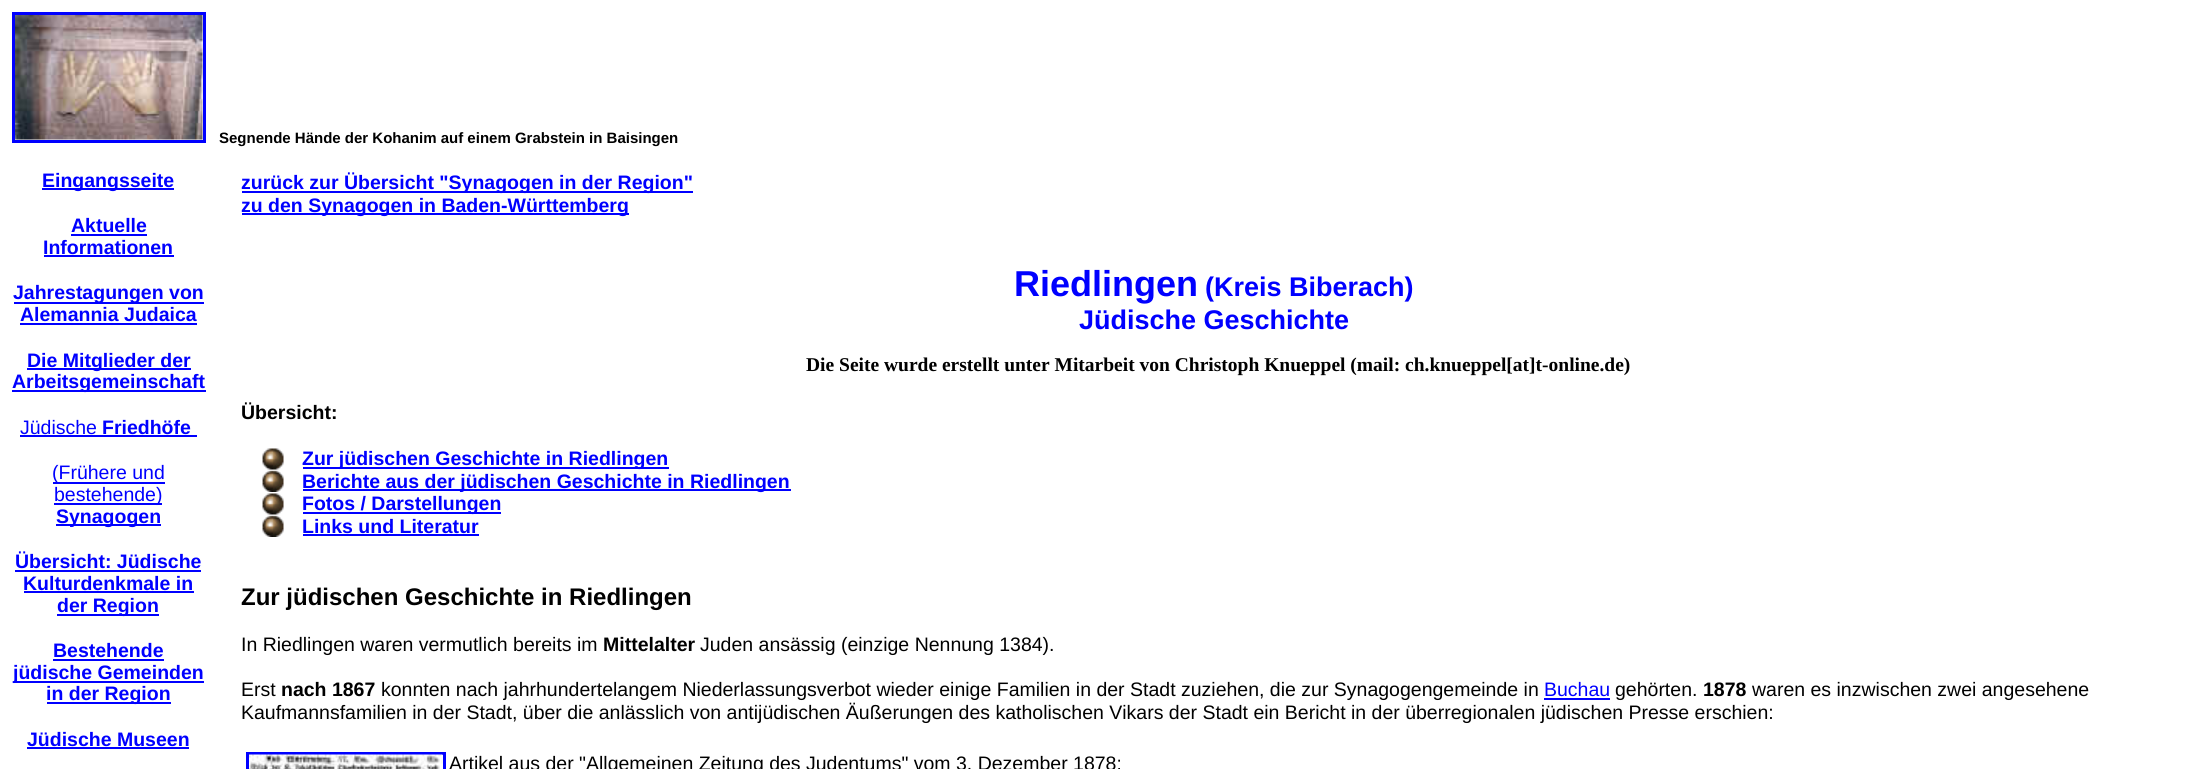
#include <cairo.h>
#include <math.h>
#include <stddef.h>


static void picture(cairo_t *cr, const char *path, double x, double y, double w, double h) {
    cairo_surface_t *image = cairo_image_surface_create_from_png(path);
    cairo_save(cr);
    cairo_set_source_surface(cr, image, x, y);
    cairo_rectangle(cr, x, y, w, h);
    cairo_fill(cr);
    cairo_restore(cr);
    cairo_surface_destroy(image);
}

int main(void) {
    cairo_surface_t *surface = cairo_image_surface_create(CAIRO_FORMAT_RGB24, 2206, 769);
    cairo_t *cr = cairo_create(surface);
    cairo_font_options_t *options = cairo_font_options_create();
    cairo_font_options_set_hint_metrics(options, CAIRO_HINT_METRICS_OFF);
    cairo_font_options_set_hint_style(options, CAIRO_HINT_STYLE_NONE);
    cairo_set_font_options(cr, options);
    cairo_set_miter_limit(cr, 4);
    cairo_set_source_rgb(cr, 1, 1, 1);
    cairo_paint(cr);
    cairo_rectangle(cr, 13.5, 13.5, 191, 128);
    cairo_set_source_rgb(cr, 0, 0, 1);
    cairo_set_line_width(cr, 3);
    cairo_stroke(cr);
    picture(cr, "img1.png", 15, 15, 188, 125);
    cairo_select_font_face(cr, "Liberation Sans", CAIRO_FONT_SLANT_NORMAL, CAIRO_FONT_WEIGHT_BOLD);
    cairo_set_font_size(cr, 15);
    cairo_set_source_rgb(cr, 0, 0, 0);
    cairo_move_to(cr, 219, 143);
    cairo_show_text(cr, "Segnende Hände der Kohanim auf einem Grabstein in Baisingen");
    cairo_set_source_rgb(cr, 0, 0, 1);
    cairo_rectangle(cr, 42, 188, 132, 2);
    cairo_fill(cr);
    cairo_set_font_size(cr, 19.5);
    cairo_move_to(cr, 42, 187);
    cairo_show_text(cr, "Eingangsseite");
    cairo_move_to(cr, 71, 232);
    cairo_show_text(cr, "Aktuelle");
    cairo_rectangle(cr, 71, 234, 76, 2);
    cairo_fill(cr);
    cairo_move_to(cr, 43, 254);
    cairo_show_text(cr, "Informationen");
    cairo_rectangle(cr, 44, 255, 130, 2);
    cairo_fill(cr);
    cairo_rectangle(cr, 14, 302, 190, 2);
    cairo_fill(cr);
    cairo_move_to(cr, 13, 299);
    cairo_show_text(cr, "Jahrestagungen von");
    cairo_move_to(cr, 20, 321);
    cairo_show_text(cr, "Alemannia Judaica");
    cairo_rectangle(cr, 20, 323, 177, 2);
    cairo_fill(cr);
    cairo_rectangle(cr, 27, 368, 164, 2);
    cairo_fill(cr);
    cairo_move_to(cr, 27, 367);
    cairo_show_text(cr, "Die Mitglieder der");
    cairo_rectangle(cr, 12, 390, 194, 2);
    cairo_fill(cr);
    cairo_move_to(cr, 12, 388);
    cairo_show_text(cr, "Arbeitsgemeinschaft");
    cairo_select_font_face(cr, "Liberation Sans", CAIRO_FONT_SLANT_NORMAL, CAIRO_FONT_WEIGHT_NORMAL);
    cairo_move_to(cr, 20, 434);
    cairo_show_text(cr, "Jüdische");
    cairo_rectangle(cr, 20, 435, 177, 2);
    cairo_fill(cr);
    cairo_select_font_face(cr, "Liberation Sans", CAIRO_FONT_SLANT_NORMAL, CAIRO_FONT_WEIGHT_BOLD);
    cairo_move_to(cr, 102, 434);
    cairo_show_text(cr, "Friedhöfe");
    cairo_rectangle(cr, 53, 482, 112, 2);
    cairo_fill(cr);
    cairo_select_font_face(cr, "Liberation Sans", CAIRO_FONT_SLANT_NORMAL, CAIRO_FONT_WEIGHT_NORMAL);
    cairo_move_to(cr, 52, 479);
    cairo_show_text(cr, "(Frühere und");
    cairo_rectangle(cr, 54, 503, 108, 2);
    cairo_fill(cr);
    cairo_move_to(cr, 54, 501);
    cairo_show_text(cr, "bestehende)");
    cairo_rectangle(cr, 56, 524, 105, 2);
    cairo_fill(cr);
    cairo_select_font_face(cr, "Liberation Sans", CAIRO_FONT_SLANT_NORMAL, CAIRO_FONT_WEIGHT_BOLD);
    cairo_move_to(cr, 56, 523);
    cairo_show_text(cr, "Synagogen");
    cairo_move_to(cr, 15, 568);
    cairo_show_text(cr, "Übersicht: Jüdische");
    cairo_rectangle(cr, 15, 570, 186, 2);
    cairo_fill(cr);
    cairo_move_to(cr, 23, 590);
    cairo_show_text(cr, "Kulturdenkmale in");
    cairo_rectangle(cr, 24, 591, 170, 2);
    cairo_fill(cr);
    cairo_rectangle(cr, 57, 614, 102, 2);
    cairo_fill(cr);
    cairo_move_to(cr, 57, 612);
    cairo_show_text(cr, "der Region");
    cairo_move_to(cr, 53, 657);
    cairo_show_text(cr, "Bestehende");
    cairo_rectangle(cr, 53, 659, 111, 2);
    cairo_fill(cr);
    cairo_rectangle(cr, 14, 681, 190, 2);
    cairo_fill(cr);
    cairo_move_to(cr, 13, 679);
    cairo_show_text(cr, "jüdische Gemeinden");
    cairo_rectangle(cr, 47, 702, 124, 2);
    cairo_fill(cr);
    cairo_move_to(cr, 46, 700);
    cairo_show_text(cr, "in der Region");
    cairo_move_to(cr, 27, 746);
    cairo_show_text(cr, "Jüdische Museen");
    cairo_rectangle(cr, 27, 747, 162, 2);
    cairo_fill(cr);
    cairo_rectangle(cr, 242, 191, 451, 2);
    cairo_fill(cr);
    cairo_move_to(cr, 241, 189);
    cairo_show_text(cr, "zurück zur Übersicht \"Synagogen in der Region\"");
    cairo_rectangle(cr, 242, 213, 387, 2);
    cairo_fill(cr);
    cairo_move_to(cr, 241, 212);
    cairo_show_text(cr, "zu den Synagogen in Baden-Württemberg");
    cairo_set_font_size(cr, 36);
    cairo_move_to(cr, 1014, 296);
    cairo_show_text(cr, "Riedlingen");
    cairo_set_font_size(cr, 27);
    cairo_move_to(cr, 1205, 296);
    cairo_show_text(cr, "(Kreis Biberach)");
    cairo_move_to(cr, 1079, 329);
    cairo_show_text(cr, "Jüdische Geschichte");
    cairo_select_font_face(cr, "Liberation Serif", CAIRO_FONT_SLANT_NORMAL, CAIRO_FONT_WEIGHT_BOLD);
    cairo_set_font_size(cr, 19.5);
    cairo_set_source_rgb(cr, 0, 0, 0);
    cairo_move_to(cr, 806, 371);
    cairo_show_text(cr, "Die Seite wurde erstellt unter Mitarbeit von Christoph Knueppel (mail: ch.knueppel[at]t-online.de)");
    cairo_select_font_face(cr, "Liberation Sans", CAIRO_FONT_SLANT_NORMAL, CAIRO_FONT_WEIGHT_BOLD);
    cairo_move_to(cr, 241, 419);
    cairo_show_text(cr, "Übersicht:");
    picture(cr, "img2.png", 262, 448, 22, 22);
    cairo_set_source_rgb(cr, 0, 0, 1);
    cairo_rectangle(cr, 303, 467, 366, 2);
    cairo_fill(cr);
    cairo_move_to(cr, 302, 465);
    cairo_show_text(cr, "Zur jüdischen Geschichte in Riedlingen");
    picture(cr, "img3.png", 262, 470, 22, 22);
    cairo_rectangle(cr, 303, 489, 488, 2);
    cairo_fill(cr);
    cairo_move_to(cr, 302, 488);
    cairo_show_text(cr, "Berichte aus der jüdischen Geschichte in Riedlingen");
    picture(cr, "img2.png", 262, 493, 22, 22);
    cairo_rectangle(cr, 303, 512, 198, 2);
    cairo_fill(cr);
    cairo_move_to(cr, 302, 510);
    cairo_show_text(cr, "Fotos / Darstellungen");
    picture(cr, "img3.png", 262, 515, 22, 22);
    cairo_move_to(cr, 302, 533);
    cairo_show_text(cr, "Links und Literatur");
    cairo_rectangle(cr, 303, 534, 176, 2);
    cairo_fill(cr);
    cairo_set_font_size(cr, 24);
    cairo_set_source_rgb(cr, 0, 0, 0);
    cairo_move_to(cr, 241, 605);
    cairo_show_text(cr, "Zur jüdischen Geschichte in Riedlingen");
    cairo_select_font_face(cr, "Liberation Sans", CAIRO_FONT_SLANT_NORMAL, CAIRO_FONT_WEIGHT_NORMAL);
    cairo_set_font_size(cr, 19.5);
    cairo_move_to(cr, 241, 651);
    cairo_show_text(cr, "In Riedlingen waren vermutlich bereits im");
    cairo_select_font_face(cr, "Liberation Sans", CAIRO_FONT_SLANT_NORMAL, CAIRO_FONT_WEIGHT_BOLD);
    cairo_move_to(cr, 603, 651);
    cairo_show_text(cr, "Mittelalter");
    cairo_select_font_face(cr, "Liberation Sans", CAIRO_FONT_SLANT_NORMAL, CAIRO_FONT_WEIGHT_NORMAL);
    cairo_move_to(cr, 700, 651);
    cairo_show_text(cr, "Juden ansässig (einzige Nennung 1384).");
    cairo_move_to(cr, 241, 696);
    cairo_show_text(cr, "Erst");
    cairo_select_font_face(cr, "Liberation Sans", CAIRO_FONT_SLANT_NORMAL, CAIRO_FONT_WEIGHT_BOLD);
    cairo_move_to(cr, 281, 696);
    cairo_show_text(cr, "nach 1867");
    cairo_select_font_face(cr, "Liberation Sans", CAIRO_FONT_SLANT_NORMAL, CAIRO_FONT_WEIGHT_NORMAL);
    cairo_move_to(cr, 381, 696);
    cairo_show_text(cr, "konnten nach jahrhundertelangem Niederlassungsverbot wieder einige Familien in der Stadt zuziehen, die zur Synagogengemeinde in");
    cairo_set_source_rgb(cr, 0, 0, 1);
    cairo_move_to(cr, 1544, 696);
    cairo_show_text(cr, "Buchau");
    cairo_rectangle(cr, 1544, 698, 66, 2);
    cairo_fill(cr);
    cairo_set_source_rgb(cr, 0, 0, 0);
    cairo_move_to(cr, 1615, 696);
    cairo_show_text(cr, "gehörten.");
    cairo_select_font_face(cr, "Liberation Sans", CAIRO_FONT_SLANT_NORMAL, CAIRO_FONT_WEIGHT_BOLD);
    cairo_move_to(cr, 1703, 696);
    cairo_show_text(cr, "1878");
    cairo_select_font_face(cr, "Liberation Sans", CAIRO_FONT_SLANT_NORMAL, CAIRO_FONT_WEIGHT_NORMAL);
    cairo_move_to(cr, 1752, 696);
    cairo_show_text(cr, "waren es inzwischen zwei angesehene");
    cairo_move_to(cr, 241, 719);
    cairo_show_text(cr, "Kaufmannsfamilien in der Stadt, über die anlässlich von antijüdischen Äußerungen des katholischen Vikars der Stadt ein Bericht in der überregionalen jüdischen Presse erschien:");
    cairo_rectangle(cr, 247.5, 753.5, 197, 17);
    cairo_set_source_rgb(cr, 0, 0, 1);
    cairo_stroke(cr);
    picture(cr, "img4.png", 249, 754, 194, 15);
    cairo_set_source_rgb(cr, 0, 0, 0);
    cairo_move_to(cr, 449, 770);
    cairo_show_text(cr, "Artikel aus der \"Allgemeinen Zeitung des Judentums\" vom 3. Dezember 1878:");
    cairo_surface_write_to_png(surface, "page.png");
    cairo_font_options_destroy(options);
    cairo_destroy(cr);
    cairo_surface_destroy(surface);
    return 0;
}
